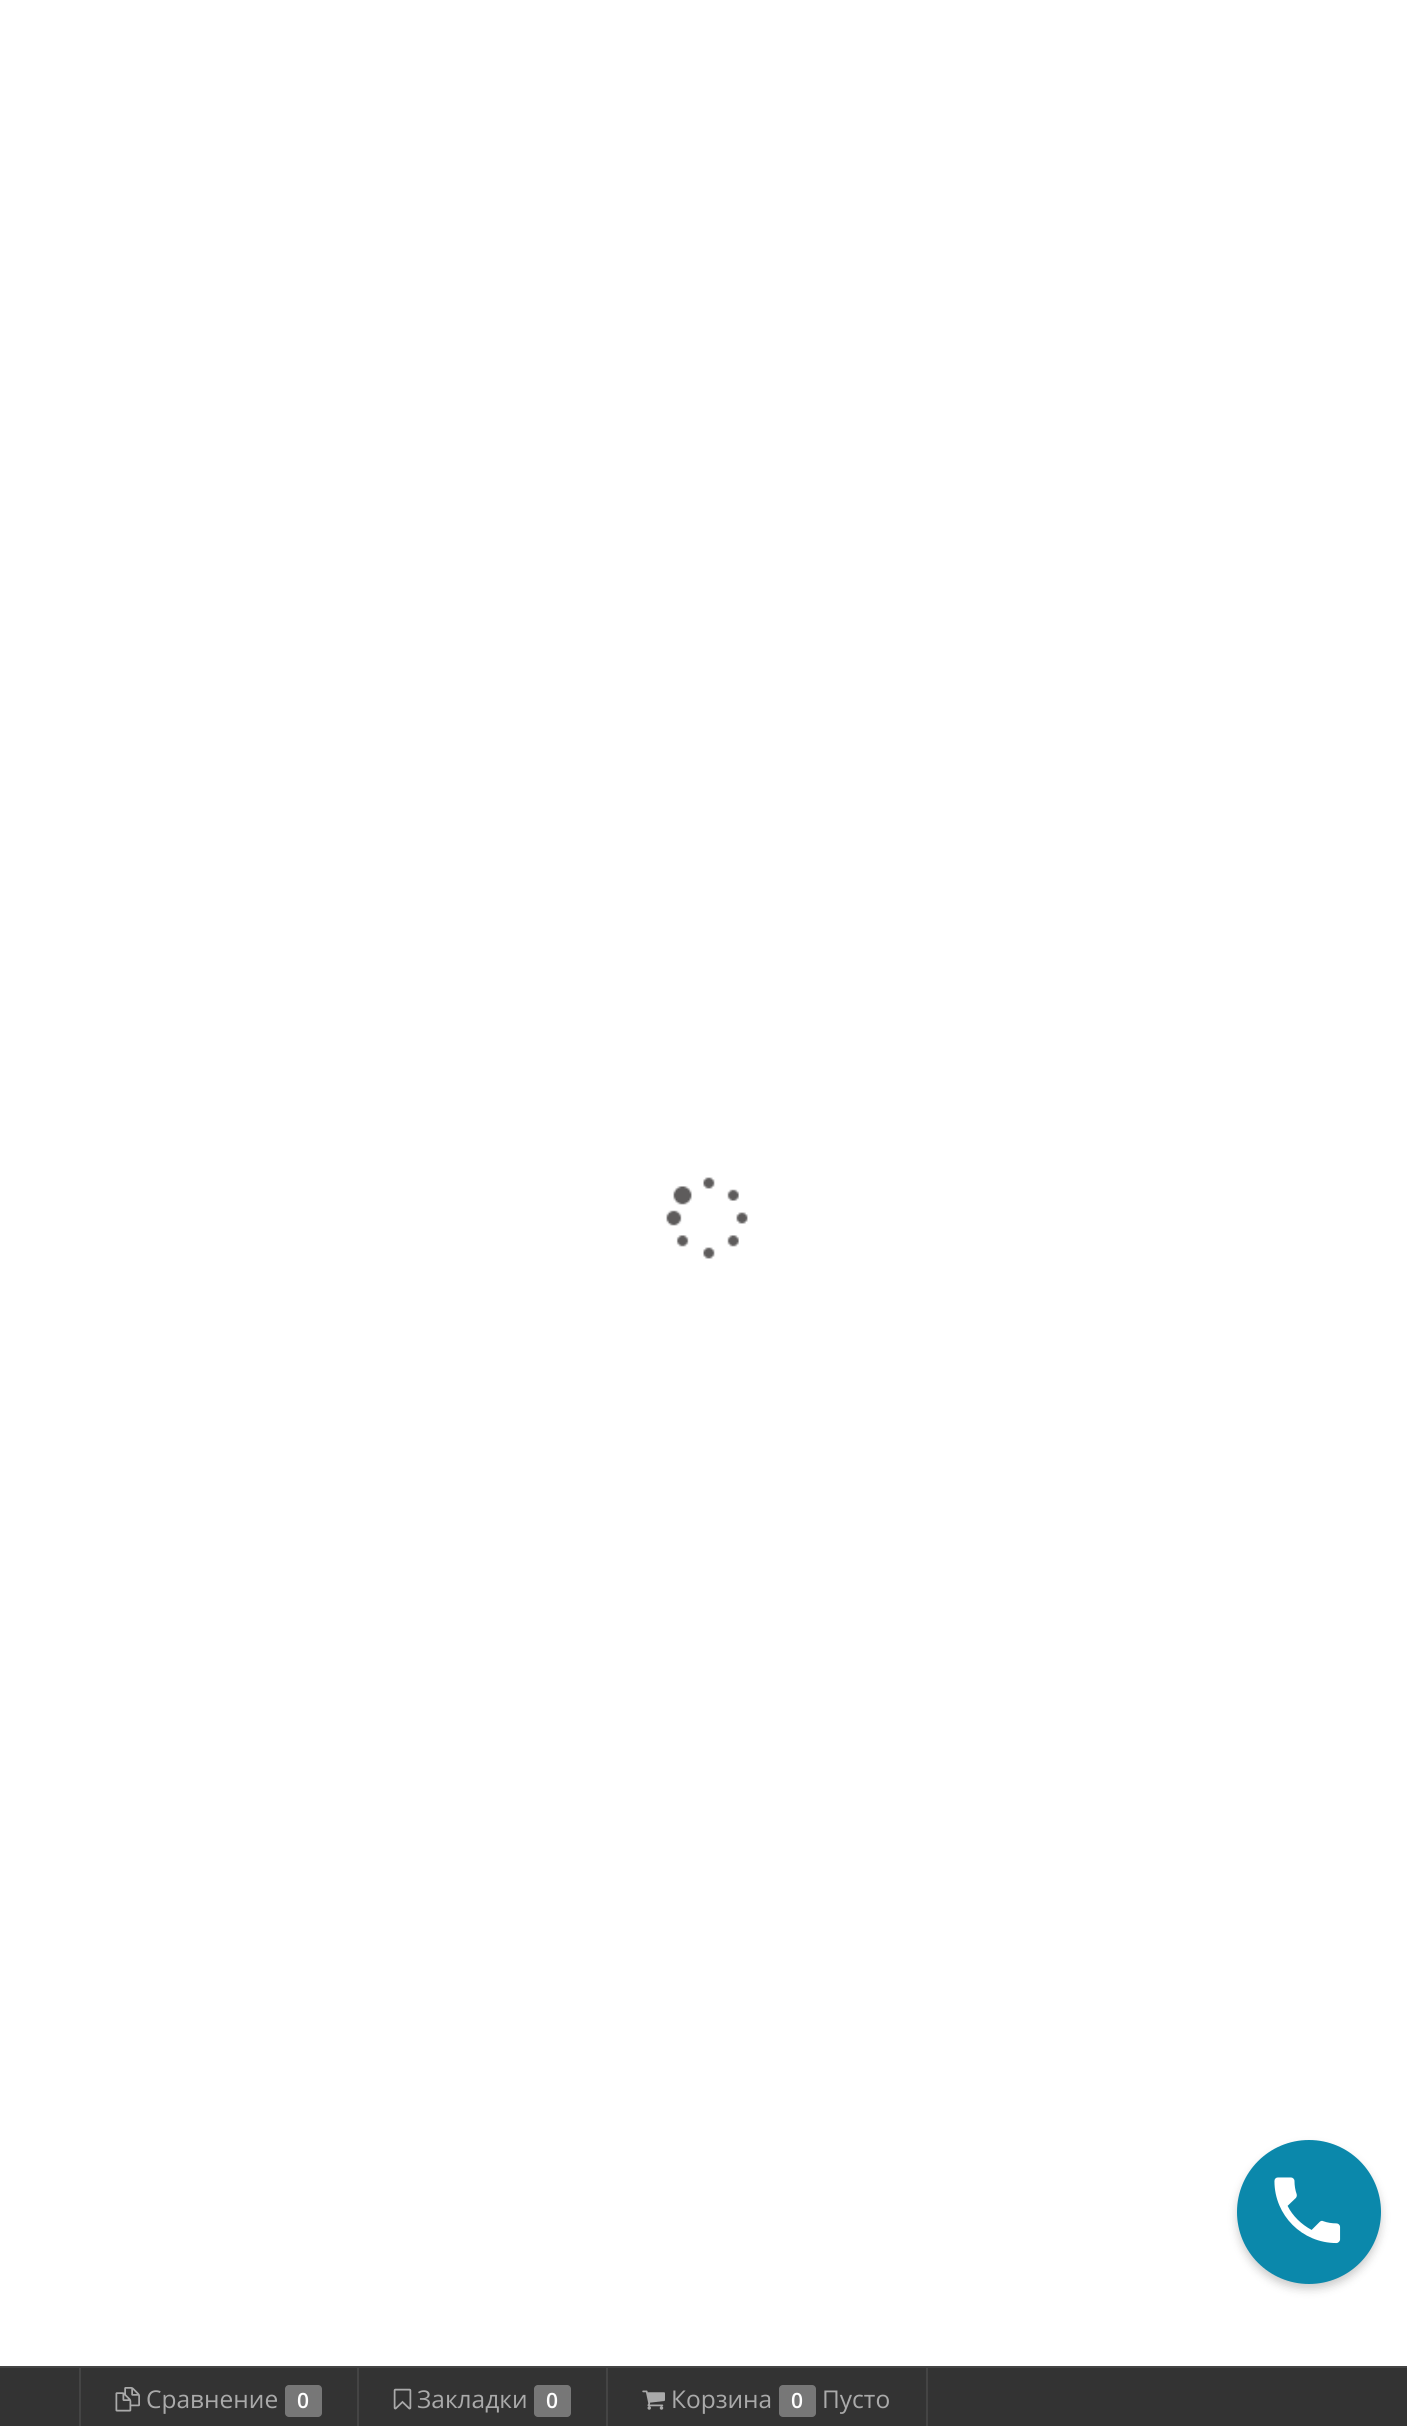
#include <cairo.h>
#include <math.h>
#include <stddef.h>


static void round_rect(cairo_t *cr, double x, double y, double w, double h, double r) {
    cairo_new_sub_path(cr);
    cairo_arc(cr, x + w - r, y + h - r, r, 0, M_PI / 2);
    cairo_arc(cr, x + r, y + h - r, r, M_PI / 2, M_PI);
    cairo_arc(cr, x + r, y + r, r, M_PI, 1.5 * M_PI);
    cairo_arc(cr, x + w - r, y + r, r, 1.5 * M_PI, 2 * M_PI);
    cairo_close_path(cr);
}

static void shadow(cairo_t *cr, double x, double y, double w, double h, double r, double blur, double alpha) {
    cairo_push_group_with_content(cr, CAIRO_CONTENT_ALPHA);
    cairo_set_operator(cr, CAIRO_OPERATOR_SOURCE);
    for (int i = 15; i >= -15 && fmin(w, h) + blur * i / 3 > 0; i -= 2) {
        double e = blur * i / 6;
        cairo_set_source_rgba(cr, 0, 0, 0, alpha * erfc((i - 1) / 8.5) / 2);
        round_rect(cr, x - e, y - e, w + 2 * e, h + 2 * e, fmax(0, fmin(r + e + blur * .6, fmin(w, h) / 2 + e)));
        cairo_fill(cr);
    }
    cairo_pattern_t *soft = cairo_pop_group(cr);
    cairo_mask(cr, soft);
    cairo_pattern_destroy(soft);
}

static void picture(cairo_t *cr, const char *path, double x, double y, double w, double h) {
    cairo_surface_t *image = cairo_image_surface_create_from_png(path);
    cairo_save(cr);
    cairo_set_source_surface(cr, image, x, y);
    cairo_rectangle(cr, x, y, w, h);
    cairo_fill(cr);
    cairo_restore(cr);
    cairo_surface_destroy(image);
}

int main(void) {
    cairo_surface_t *surface = cairo_image_surface_create(CAIRO_FORMAT_RGB24, 1407, 2426);
    cairo_t *cr = cairo_create(surface);
    cairo_font_options_t *options = cairo_font_options_create();
    cairo_font_options_set_hint_metrics(options, CAIRO_HINT_METRICS_OFF);
    cairo_font_options_set_hint_style(options, CAIRO_HINT_STYLE_NONE);
    cairo_set_font_options(cr, options);
    cairo_set_miter_limit(cr, 4);
    cairo_set_source_rgb(cr, 1, 1, 1);
    cairo_paint(cr);
    picture(cr, "img1.png", 666, 1177, 82, 82);
    cairo_set_source_rgb(cr, 0, 0, 0);
    shadow(cr, 1237, 2146, 144, 143, 71.5, 4.5, 0.2);
    cairo_set_source_rgb(cr, 0.043, 0.533, 0.671);
    cairo_arc(cr, 1309, 2212, 72, 0, 2 * M_PI);
    cairo_fill(cr);
    picture(cr, "img2.png", 1274, 2177, 67, 67);
    cairo_set_source_rgb(cr, 0.2, 0.2, 0.2);
    cairo_rectangle(cr, 0, 2368, 1407, 58);
    cairo_fill(cr);
    cairo_set_source_rgb(cr, 0.267, 0.267, 0.267);
    cairo_rectangle(cr, 0, 2366, 1407, 2);
    cairo_fill(cr);
    cairo_rectangle(cr, 926, 2368, 2, 58);
    cairo_fill(cr);
    cairo_rectangle(cr, 79, 2368, 2, 58);
    cairo_fill(cr);
    picture(cr, "img3.png", 115, 2387, 25, 25);
    cairo_select_font_face(cr, "Open Sans", CAIRO_FONT_SLANT_NORMAL, CAIRO_FONT_WEIGHT_NORMAL);
    cairo_set_font_size(cr, 24.5);
    cairo_set_source_rgb(cr, 0.667, 0.667, 0.667);
    cairo_move_to(cr, 146, 2408);
    cairo_show_text(cr, "Сравнение");
    cairo_set_source_rgb(cr, 0.467, 0.467, 0.467);
    round_rect(cr, 285, 2385, 37, 32, 4);
    cairo_fill(cr);
    cairo_select_font_face(cr, "Open Sans SemiBold", CAIRO_FONT_SLANT_NORMAL, CAIRO_FONT_WEIGHT_NORMAL);
    cairo_set_font_size(cr, 21);
    cairo_set_source_rgb(cr, 1, 1, 1);
    cairo_move_to(cr, 297, 2408);
    cairo_show_text(cr, "0");
    cairo_set_source_rgb(cr, 0.267, 0.267, 0.267);
    cairo_rectangle(cr, 357, 2368, 2, 58);
    cairo_fill(cr);
    picture(cr, "img4.png", 393, 2388, 19, 22);
    cairo_select_font_face(cr, "Open Sans", CAIRO_FONT_SLANT_NORMAL, CAIRO_FONT_WEIGHT_NORMAL);
    cairo_set_font_size(cr, 24.5);
    cairo_set_source_rgb(cr, 0.667, 0.667, 0.667);
    cairo_move_to(cr, 417, 2408);
    cairo_show_text(cr, "Закладки");
    cairo_set_source_rgb(cr, 0.467, 0.467, 0.467);
    round_rect(cr, 534, 2385, 37, 32, 4);
    cairo_fill(cr);
    cairo_select_font_face(cr, "Open Sans SemiBold", CAIRO_FONT_SLANT_NORMAL, CAIRO_FONT_WEIGHT_NORMAL);
    cairo_set_font_size(cr, 21);
    cairo_set_source_rgb(cr, 1, 1, 1);
    cairo_move_to(cr, 546, 2408);
    cairo_show_text(cr, "0");
    cairo_set_source_rgb(cr, 0.267, 0.267, 0.267);
    cairo_rectangle(cr, 606, 2368, 2, 58);
    cairo_fill(cr);
    picture(cr, "img5.png", 642, 2390, 23, 20);
    cairo_select_font_face(cr, "Open Sans", CAIRO_FONT_SLANT_NORMAL, CAIRO_FONT_WEIGHT_NORMAL);
    cairo_set_font_size(cr, 24.5);
    cairo_set_source_rgb(cr, 0.667, 0.667, 0.667);
    cairo_move_to(cr, 671, 2408);
    cairo_show_text(cr, "Корзина");
    cairo_set_source_rgb(cr, 0.467, 0.467, 0.467);
    round_rect(cr, 779, 2385, 37, 32, 4);
    cairo_fill(cr);
    cairo_select_font_face(cr, "Open Sans SemiBold", CAIRO_FONT_SLANT_NORMAL, CAIRO_FONT_WEIGHT_NORMAL);
    cairo_set_font_size(cr, 21);
    cairo_set_source_rgb(cr, 1, 1, 1);
    cairo_move_to(cr, 791, 2408);
    cairo_show_text(cr, "0");
    cairo_select_font_face(cr, "Open Sans", CAIRO_FONT_SLANT_NORMAL, CAIRO_FONT_WEIGHT_NORMAL);
    cairo_set_font_size(cr, 24.5);
    cairo_set_source_rgb(cr, 0.667, 0.667, 0.667);
    cairo_move_to(cr, 822, 2408);
    cairo_show_text(cr, "Пусто");
    cairo_surface_write_to_png(surface, "page.png");
    cairo_font_options_destroy(options);
    cairo_destroy(cr);
    cairo_surface_destroy(surface);
    return 0;
}
